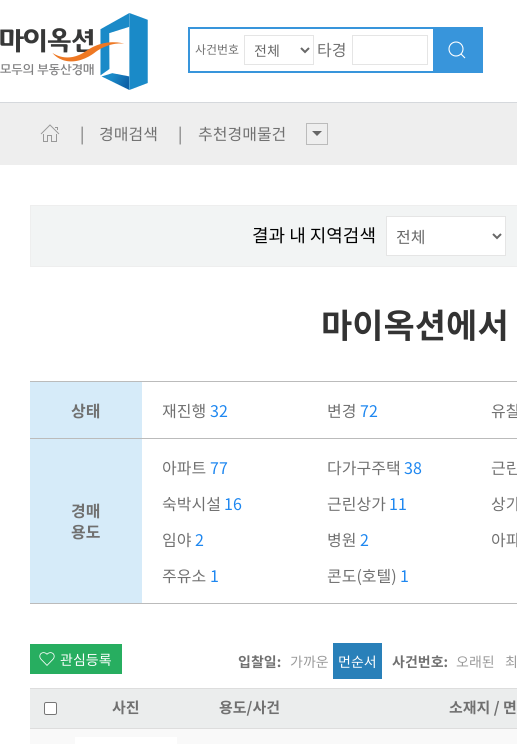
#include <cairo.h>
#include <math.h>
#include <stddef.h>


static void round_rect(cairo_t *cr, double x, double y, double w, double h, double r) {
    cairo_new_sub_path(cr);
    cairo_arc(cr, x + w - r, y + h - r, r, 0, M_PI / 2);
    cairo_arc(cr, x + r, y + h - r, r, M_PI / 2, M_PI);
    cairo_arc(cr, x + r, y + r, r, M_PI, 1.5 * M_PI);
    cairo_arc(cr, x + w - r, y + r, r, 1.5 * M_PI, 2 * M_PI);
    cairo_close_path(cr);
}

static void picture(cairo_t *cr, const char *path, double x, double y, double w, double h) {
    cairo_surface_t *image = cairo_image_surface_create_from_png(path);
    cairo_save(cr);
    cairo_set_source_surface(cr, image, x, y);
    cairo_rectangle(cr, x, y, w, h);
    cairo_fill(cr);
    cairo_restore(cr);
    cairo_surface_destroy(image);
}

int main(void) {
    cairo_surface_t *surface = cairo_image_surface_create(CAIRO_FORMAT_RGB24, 517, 744);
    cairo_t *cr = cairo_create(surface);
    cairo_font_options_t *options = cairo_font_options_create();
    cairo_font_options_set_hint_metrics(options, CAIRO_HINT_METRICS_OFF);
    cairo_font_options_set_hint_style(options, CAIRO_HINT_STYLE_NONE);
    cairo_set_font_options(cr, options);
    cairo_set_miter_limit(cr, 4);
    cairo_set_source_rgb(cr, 1, 1, 1);
    cairo_paint(cr);
    picture(cr, "img1.png", 0, 13, 148, 77);
    cairo_rectangle(cr, 189, 28, 293, 44);
    cairo_set_source_rgb(cr, 0.22, 0.584, 0.859);
    cairo_stroke(cr);
    cairo_select_font_face(cr, "Noto Sans KR", CAIRO_FONT_SLANT_NORMAL, CAIRO_FONT_WEIGHT_NORMAL);
    cairo_set_font_size(cr, 12);
    cairo_set_source_rgb(cr, 0.439, 0.439, 0.439);
    cairo_move_to(cr, 195, 54);
    cairo_show_text(cr, "사건번호");
    cairo_rectangle(cr, 244.5, 35.5, 69, 29);
    cairo_set_source_rgb(cr, 0.898, 0.898, 0.898);
    cairo_set_line_width(cr, 1);
    cairo_stroke(cr);
    cairo_new_path(cr);
    cairo_move_to(cr, 301, 48);
    cairo_line_to(cr, 305, 52);
    cairo_line_to(cr, 309, 48);
    cairo_set_source_rgb(cr, 0.408, 0.408, 0.408);
    cairo_set_line_width(cr, 2);
    cairo_stroke(cr);
    cairo_set_font_size(cr, 14);
    cairo_move_to(cr, 254, 56);
    cairo_show_text(cr, "전체");
    cairo_set_font_size(cr, 16);
    cairo_set_source_rgb(cr, 0.439, 0.439, 0.439);
    cairo_move_to(cr, 317, 56);
    cairo_show_text(cr, "타경");
    cairo_rectangle(cr, 352.5, 35.5, 75, 29);
    cairo_set_source_rgb(cr, 0.898, 0.898, 0.898);
    cairo_set_line_width(cr, 1);
    cairo_stroke(cr);
    cairo_set_source_rgb(cr, 0.22, 0.584, 0.859);
    cairo_rectangle(cr, 433, 29, 48, 42);
    cairo_fill(cr);
    cairo_arc(cr, 456, 49, 7, 0, 2 * M_PI);
    cairo_set_source_rgb(cr, 1, 1, 1);
    cairo_set_line_width(cr, 1.1);
    cairo_stroke(cr);
    cairo_new_path(cr);
    cairo_move_to(cr, 461, 54);
    cairo_line_to(cr, 465, 58);
    cairo_close_path(cr);
    cairo_stroke(cr);
    cairo_set_source_rgb(cr, 0.933, 0.933, 0.933);
    cairo_rectangle(cr, 0, 103, 517, 62);
    cairo_fill(cr);
    cairo_set_source_rgb(cr, 0.835, 0.847, 0.863);
    cairo_rectangle(cr, 0, 102, 517, 1);
    cairo_fill(cr);
    picture(cr, "img2.png", 40, 124, 20, 18);
    cairo_set_source_rgb(cr, 0.439, 0.439, 0.439);
    cairo_move_to(cr, 80, 140);
    cairo_show_text(cr, "|");
    cairo_move_to(cr, 99, 140);
    cairo_show_text(cr, "경매검색");
    cairo_move_to(cr, 178, 140);
    cairo_show_text(cr, "|");
    cairo_move_to(cr, 198, 140);
    cairo_show_text(cr, "추천경매물건");
    cairo_set_source_rgb(cr, 0.4, 0.4, 0.4);
    cairo_new_path(cr);
    cairo_move_to(cr, 312, 131);
    cairo_line_to(cr, 322, 131);
    cairo_line_to(cr, 317, 136);
    cairo_close_path(cr);
    cairo_fill(cr);
    cairo_rectangle(cr, 306.5, 123.5, 21, 21);
    cairo_set_source_rgb(cr, 0.733, 0.733, 0.733);
    cairo_set_line_width(cr, 1);
    cairo_stroke(cr);
    cairo_set_source_rgb(cr, 0.949, 0.957, 0.957);
    cairo_rectangle(cr, 30.5, 205.5, 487, 61);
    cairo_fill_preserve(cr);
    cairo_set_source_rgb(cr, 0.933, 0.933, 0.933);
    cairo_stroke(cr);
    cairo_set_font_size(cr, 18);
    cairo_set_source_rgb(cr, 0, 0, 0);
    cairo_move_to(cr, 252, 242);
    cairo_show_text(cr, "결과 내 지역검색");
    cairo_set_source_rgb(cr, 1, 1, 1);
    cairo_rectangle(cr, 386.5, 216.5, 119, 39);
    cairo_fill_preserve(cr);
    cairo_set_source_rgb(cr, 0.898, 0.898, 0.898);
    cairo_stroke(cr);
    cairo_new_path(cr);
    cairo_move_to(cr, 493, 234);
    cairo_line_to(cr, 497, 238);
    cairo_line_to(cr, 501, 234);
    cairo_set_source_rgb(cr, 0.408, 0.408, 0.408);
    cairo_set_line_width(cr, 2);
    cairo_stroke(cr);
    cairo_set_font_size(cr, 16);
    cairo_move_to(cr, 396, 243);
    cairo_show_text(cr, "전체");
    cairo_select_font_face(cr, "Noto Sans KR", CAIRO_FONT_SLANT_NORMAL, CAIRO_FONT_WEIGHT_BOLD);
    cairo_set_font_size(cr, 34);
    cairo_set_source_rgb(cr, 0.2, 0.2, 0.2);
    cairo_move_to(cr, 321, 338);
    cairo_show_text(cr, "마이옥션에서");
    cairo_set_source_rgb(cr, 0.733, 0.733, 0.733);
    cairo_rectangle(cr, 30, 381, 487, 1);
    cairo_fill(cr);
    cairo_set_source_rgb(cr, 0.839, 0.918, 0.973);
    cairo_rectangle(cr, 30, 382, 112, 56);
    cairo_fill(cr);
    cairo_set_font_size(cr, 16);
    cairo_set_source_rgb(cr, 0.439, 0.439, 0.439);
    cairo_move_to(cr, 71, 417);
    cairo_show_text(cr, "상태");
    cairo_set_source_rgb(cr, 0.733, 0.733, 0.733);
    cairo_rectangle(cr, 30, 438, 487, 1);
    cairo_fill(cr);
    cairo_select_font_face(cr, "Noto Sans KR", CAIRO_FONT_SLANT_NORMAL, CAIRO_FONT_WEIGHT_NORMAL);
    cairo_set_source_rgb(cr, 0.439, 0.439, 0.439);
    cairo_move_to(cr, 162, 417);
    cairo_show_text(cr, "재진행");
    cairo_set_source_rgb(cr, 0.118, 0.529, 0.941);
    cairo_move_to(cr, 210, 417);
    cairo_show_text(cr, "32");
    cairo_set_source_rgb(cr, 0.439, 0.439, 0.439);
    cairo_move_to(cr, 327, 417);
    cairo_show_text(cr, "변경");
    cairo_set_source_rgb(cr, 0.118, 0.529, 0.941);
    cairo_move_to(cr, 360, 417);
    cairo_show_text(cr, "72");
    cairo_set_source_rgb(cr, 0.439, 0.439, 0.439);
    cairo_move_to(cr, 491, 417);
    cairo_show_text(cr, "유찰");
    cairo_set_source_rgb(cr, 0.839, 0.918, 0.973);
    cairo_rectangle(cr, 30, 439, 112, 164);
    cairo_fill(cr);
    cairo_select_font_face(cr, "Noto Sans KR", CAIRO_FONT_SLANT_NORMAL, CAIRO_FONT_WEIGHT_BOLD);
    cairo_set_source_rgb(cr, 0.439, 0.439, 0.439);
    cairo_move_to(cr, 71, 517);
    cairo_show_text(cr, "경매");
    cairo_move_to(cr, 71, 538);
    cairo_show_text(cr, "용도");
    cairo_set_source_rgb(cr, 0.733, 0.733, 0.733);
    cairo_rectangle(cr, 30, 603, 487, 1);
    cairo_fill(cr);
    cairo_select_font_face(cr, "Noto Sans KR", CAIRO_FONT_SLANT_NORMAL, CAIRO_FONT_WEIGHT_NORMAL);
    cairo_set_source_rgb(cr, 0.439, 0.439, 0.439);
    cairo_move_to(cr, 162, 474);
    cairo_show_text(cr, "아파트");
    cairo_set_source_rgb(cr, 0.118, 0.529, 0.941);
    cairo_move_to(cr, 210, 474);
    cairo_show_text(cr, "77");
    cairo_set_source_rgb(cr, 0.439, 0.439, 0.439);
    cairo_move_to(cr, 327, 474);
    cairo_show_text(cr, "다가구주택");
    cairo_set_source_rgb(cr, 0.118, 0.529, 0.941);
    cairo_move_to(cr, 404, 474);
    cairo_show_text(cr, "38");
    cairo_set_source_rgb(cr, 0.439, 0.439, 0.439);
    cairo_move_to(cr, 491, 474);
    cairo_show_text(cr, "근린");
    cairo_move_to(cr, 162, 510);
    cairo_show_text(cr, "숙박시설");
    cairo_set_source_rgb(cr, 0.118, 0.529, 0.941);
    cairo_move_to(cr, 224, 510);
    cairo_show_text(cr, "16");
    cairo_set_source_rgb(cr, 0.439, 0.439, 0.439);
    cairo_move_to(cr, 327, 510);
    cairo_show_text(cr, "근린상가");
    cairo_set_source_rgb(cr, 0.118, 0.529, 0.941);
    cairo_move_to(cr, 389, 510);
    cairo_show_text(cr, "11");
    cairo_set_source_rgb(cr, 0.439, 0.439, 0.439);
    cairo_move_to(cr, 491, 510);
    cairo_show_text(cr, "상가");
    cairo_move_to(cr, 162, 546);
    cairo_show_text(cr, "임야");
    cairo_set_source_rgb(cr, 0.118, 0.529, 0.941);
    cairo_move_to(cr, 195, 546);
    cairo_show_text(cr, "2");
    cairo_set_source_rgb(cr, 0.439, 0.439, 0.439);
    cairo_move_to(cr, 327, 546);
    cairo_show_text(cr, "병원");
    cairo_set_source_rgb(cr, 0.118, 0.529, 0.941);
    cairo_move_to(cr, 360, 546);
    cairo_show_text(cr, "2");
    cairo_set_source_rgb(cr, 0.439, 0.439, 0.439);
    cairo_move_to(cr, 491, 546);
    cairo_show_text(cr, "아파");
    cairo_move_to(cr, 162, 582);
    cairo_show_text(cr, "주유소");
    cairo_set_source_rgb(cr, 0.118, 0.529, 0.941);
    cairo_move_to(cr, 210, 582);
    cairo_show_text(cr, "1");
    cairo_set_source_rgb(cr, 0.439, 0.439, 0.439);
    cairo_move_to(cr, 327, 582);
    cairo_show_text(cr, "콘도(호텔)");
    cairo_set_source_rgb(cr, 0.118, 0.529, 0.941);
    cairo_move_to(cr, 400, 582);
    cairo_show_text(cr, "1");
    cairo_set_source_rgb(cr, 0.153, 0.682, 0.376);
    cairo_rectangle(cr, 30, 644, 92, 30);
    cairo_fill(cr);
    picture(cr, "img3.png", 39, 652, 16, 14);
    cairo_set_font_size(cr, 14);
    cairo_set_source_rgb(cr, 1, 1, 1);
    cairo_move_to(cr, 60, 665);
    cairo_show_text(cr, "관심등록");
    cairo_select_font_face(cr, "Noto Sans KR", CAIRO_FONT_SLANT_NORMAL, CAIRO_FONT_WEIGHT_BOLD);
    cairo_set_source_rgb(cr, 0.439, 0.439, 0.439);
    cairo_move_to(cr, 238, 667);
    cairo_show_text(cr, "입찰일:");
    cairo_select_font_face(cr, "Noto Sans KR", CAIRO_FONT_SLANT_NORMAL, CAIRO_FONT_WEIGHT_NORMAL);
    cairo_set_source_rgb(cr, 0.604, 0.604, 0.604);
    cairo_move_to(cr, 290, 667);
    cairo_show_text(cr, "가까운");
    cairo_set_source_rgb(cr, 0.161, 0.502, 0.725);
    cairo_rectangle(cr, 333, 643, 49, 36);
    cairo_fill(cr);
    cairo_set_source_rgb(cr, 1, 1, 1);
    cairo_move_to(cr, 338, 667);
    cairo_show_text(cr, "먼순서");
    cairo_select_font_face(cr, "Noto Sans KR", CAIRO_FONT_SLANT_NORMAL, CAIRO_FONT_WEIGHT_BOLD);
    cairo_set_source_rgb(cr, 0.439, 0.439, 0.439);
    cairo_move_to(cr, 392, 667);
    cairo_show_text(cr, "사건번호:");
    cairo_select_font_face(cr, "Noto Sans KR", CAIRO_FONT_SLANT_NORMAL, CAIRO_FONT_WEIGHT_NORMAL);
    cairo_set_source_rgb(cr, 0.604, 0.604, 0.604);
    cairo_move_to(cr, 456, 667);
    cairo_show_text(cr, "오래된");
    cairo_move_to(cr, 505, 667);
    cairo_show_text(cr, "최");
    cairo_set_source_rgb(cr, 0.867, 0.867, 0.867);
    cairo_rectangle(cr, 30, 688, 487, 1);
    cairo_fill(cr);
    cairo_set_source_rgb(cr, 0.918, 0.929, 0.929);
    cairo_rectangle(cr, 30, 689, 487, 39);
    cairo_fill(cr);
    cairo_set_source_rgb(cr, 1, 1, 1);
    round_rect(cr, 44.5, 702.5, 12, 12, 1.5);
    cairo_fill_preserve(cr);
    cairo_set_source_rgb(cr, 0.463, 0.463, 0.463);
    cairo_set_line_width(cr, 1);
    cairo_stroke(cr);
    cairo_select_font_face(cr, "Noto Sans KR", CAIRO_FONT_SLANT_NORMAL, CAIRO_FONT_WEIGHT_BOLD);
    cairo_set_font_size(cr, 15);
    cairo_set_source_rgb(cr, 0.439, 0.439, 0.439);
    cairo_move_to(cr, 112, 713);
    cairo_show_text(cr, "사진");
    cairo_move_to(cr, 219, 713);
    cairo_show_text(cr, "용도/사건");
    cairo_set_source_rgb(cr, 0.867, 0.867, 0.867);
    cairo_rectangle(cr, 30, 728, 487, 1);
    cairo_fill(cr);
    cairo_set_source_rgb(cr, 0.439, 0.439, 0.439);
    cairo_move_to(cr, 449, 713);
    cairo_show_text(cr, "소재지 / 면");
    cairo_set_source_rgb(cr, 0.973, 0.973, 0.973);
    cairo_rectangle(cr, 30, 729, 487, 15);
    cairo_fill(cr);
    cairo_set_source_rgb(cr, 1, 1, 1);
    cairo_rectangle(cr, 75, 737, 102, 7);
    cairo_fill(cr);
    cairo_surface_write_to_png(surface, "page.png");
    cairo_font_options_destroy(options);
    cairo_destroy(cr);
    cairo_surface_destroy(surface);
    return 0;
}
